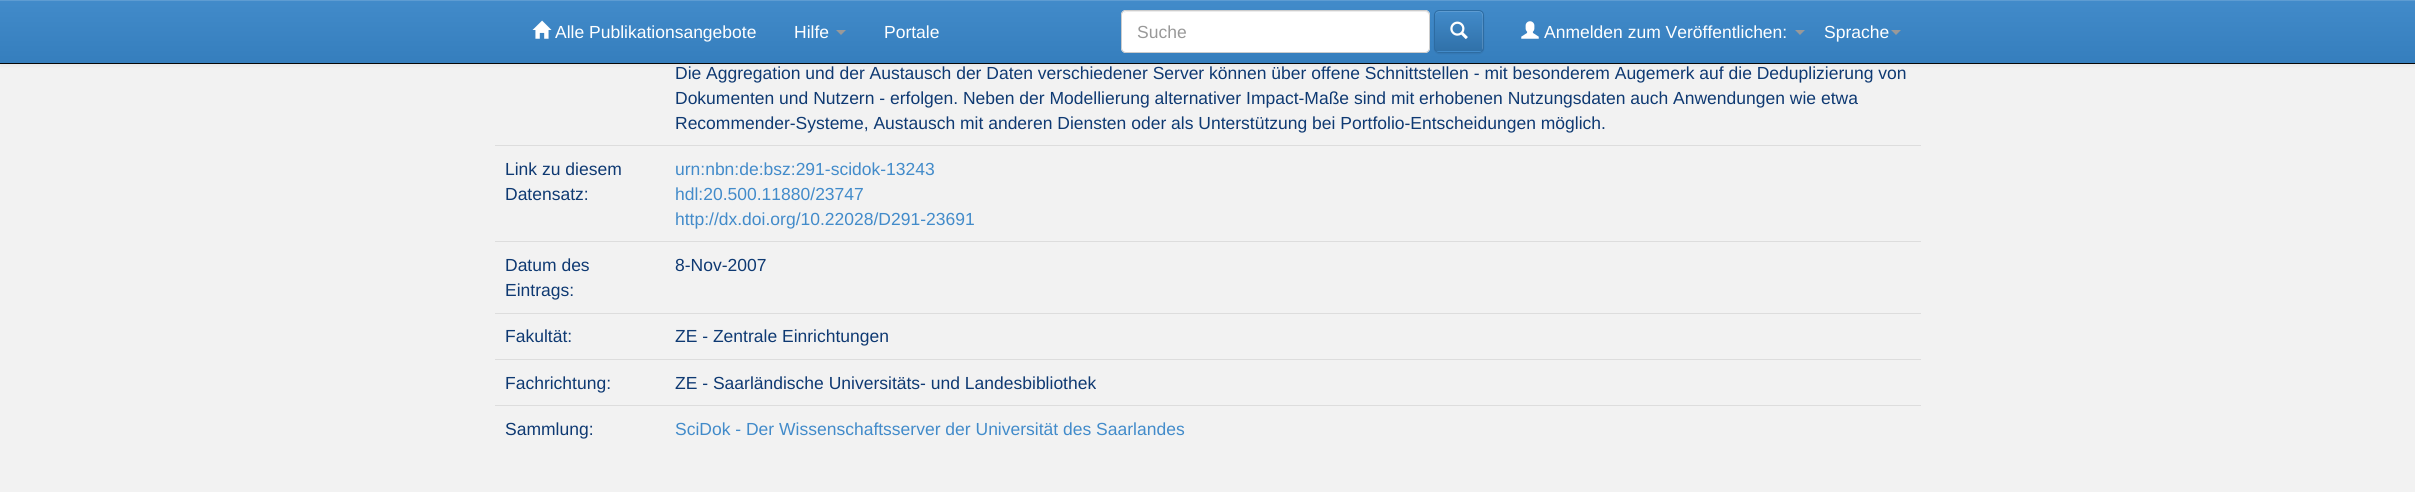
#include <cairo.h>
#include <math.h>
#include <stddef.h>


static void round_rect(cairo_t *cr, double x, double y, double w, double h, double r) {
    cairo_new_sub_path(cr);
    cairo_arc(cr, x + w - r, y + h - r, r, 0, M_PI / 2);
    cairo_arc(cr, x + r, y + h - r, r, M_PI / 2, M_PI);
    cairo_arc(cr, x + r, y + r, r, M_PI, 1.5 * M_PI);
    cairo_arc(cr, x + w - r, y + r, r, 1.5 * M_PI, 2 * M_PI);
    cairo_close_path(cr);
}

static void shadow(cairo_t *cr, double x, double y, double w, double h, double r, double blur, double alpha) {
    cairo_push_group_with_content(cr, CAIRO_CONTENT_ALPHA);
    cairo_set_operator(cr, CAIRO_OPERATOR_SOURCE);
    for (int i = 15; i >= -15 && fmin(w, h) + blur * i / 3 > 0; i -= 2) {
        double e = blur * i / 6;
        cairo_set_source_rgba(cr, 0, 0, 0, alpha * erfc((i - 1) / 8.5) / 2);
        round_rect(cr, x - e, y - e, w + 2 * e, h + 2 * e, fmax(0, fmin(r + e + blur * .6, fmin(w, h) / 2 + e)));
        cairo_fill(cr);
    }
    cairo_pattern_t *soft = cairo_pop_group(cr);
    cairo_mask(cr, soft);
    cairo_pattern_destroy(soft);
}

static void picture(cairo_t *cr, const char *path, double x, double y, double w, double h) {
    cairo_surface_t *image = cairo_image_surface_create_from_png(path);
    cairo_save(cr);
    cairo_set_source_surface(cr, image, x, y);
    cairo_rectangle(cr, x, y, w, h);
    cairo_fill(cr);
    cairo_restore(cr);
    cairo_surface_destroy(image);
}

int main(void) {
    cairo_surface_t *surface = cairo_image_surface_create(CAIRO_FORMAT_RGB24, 2415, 492);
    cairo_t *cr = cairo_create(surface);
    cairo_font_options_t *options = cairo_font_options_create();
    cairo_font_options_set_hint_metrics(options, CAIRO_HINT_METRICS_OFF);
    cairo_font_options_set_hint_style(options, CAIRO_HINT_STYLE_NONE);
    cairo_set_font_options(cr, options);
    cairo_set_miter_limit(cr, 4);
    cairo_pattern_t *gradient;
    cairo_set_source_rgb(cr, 0.949, 0.949, 0.949);
    cairo_paint(cr);
    cairo_set_source_rgb(cr, 0, 0, 0);
    shadow(cr, 0, 1, 2415, 64, 0, 3, 0.07);
    gradient = cairo_pattern_create_linear(1208, 0, 1208, 63);
    cairo_pattern_add_color_stop_rgba(gradient, 0, 0.259, 0.545, 0.792, 1);
    cairo_pattern_add_color_stop_rgba(gradient, 1, 0.208, 0.494, 0.741, 1);
    cairo_set_source(cr, gradient);
    cairo_pattern_destroy(gradient);
    cairo_rectangle(cr, 0, 1, 2415, 62);
    cairo_fill(cr);
    cairo_set_source_rgb(cr, 0.369, 0.612, 0.824);
    cairo_rectangle(cr, 0, 0, 2415, 1);
    cairo_fill(cr);
    cairo_set_source_rgb(cr, 0.031, 0.031, 0.031);
    cairo_rectangle(cr, 0, 63, 2415, 1);
    cairo_fill(cr);
    picture(cr, "img1.png", 532, 20, 20, 19);
    cairo_select_font_face(cr, "Liberation Sans", CAIRO_FONT_SLANT_NORMAL, CAIRO_FONT_WEIGHT_NORMAL);
    cairo_set_font_size(cr, 17.5);
    cairo_set_source_rgb(cr, 1, 1, 1);
    cairo_move_to(cr, 555, 38);
    cairo_show_text(cr, "Alle Publikationsangebote");
    cairo_move_to(cr, 794, 38);
    cairo_show_text(cr, "Hilfe");
    cairo_set_source_rgb(cr, 0.6, 0.6, 0.6);
    cairo_new_path(cr);
    cairo_move_to(cr, 836, 30);
    cairo_line_to(cr, 846, 30);
    cairo_line_to(cr, 841, 35);
    cairo_close_path(cr);
    cairo_fill(cr);
    cairo_set_source_rgb(cr, 1, 1, 1);
    cairo_move_to(cr, 884, 38);
    cairo_show_text(cr, "Portale");
    round_rect(cr, 1121, 10, 309, 43, 5);
    cairo_fill(cr);
    cairo_set_source_rgb(cr, 0.925, 0.925, 0.925);
    cairo_new_path(cr);
    cairo_move_to(cr, 1126, 12);
    cairo_line_to(cr, 1425, 12);
    cairo_curve_to(cr, 1427, 12, 1429, 14, 1429, 16);
    cairo_line_to(cr, 1429, 15);
    cairo_curve_to(cr, 1429, 13, 1427, 11, 1425, 11);
    cairo_line_to(cr, 1127, 11);
    cairo_curve_to(cr, 1126, 11, 1124, 12, 1124, 13);
    cairo_close_path(cr);
    cairo_fill(cr);
    round_rect(cr, 1121.5, 10.5, 308, 42, 4.5);
    cairo_set_source_rgb(cr, 0.8, 0.8, 0.8);
    cairo_set_line_width(cr, 1);
    cairo_stroke(cr);
    cairo_set_source_rgb(cr, 0.6, 0.6, 0.6);
    cairo_move_to(cr, 1137, 38);
    cairo_show_text(cr, "Suche");
    cairo_set_source_rgb(cr, 0, 0, 0);
    shadow(cr, 1434, 11, 50, 43, 5, 0.5, 0.07);
    cairo_set_source_rgb(cr, 0.259, 0.545, 0.792);
    round_rect(cr, 1434, 10, 50, 43, 5);
    cairo_fill(cr);
    cairo_save(cr);
    round_rect(cr, 1434, 10, 50, 43, 5);
    cairo_clip(cr);
    gradient = cairo_pattern_create_linear(1459, 11, 1459, 51);
    cairo_pattern_add_color_stop_rgba(gradient, 0, 0.259, 0.545, 0.792, 1);
    cairo_pattern_add_color_stop_rgba(gradient, 1, 0.188, 0.443, 0.663, 1);
    cairo_set_source(cr, gradient);
    cairo_pattern_destroy(gradient);
    cairo_rectangle(cr, 1434, 11, 50, 40);
    cairo_fill(cr);
    cairo_restore(cr);
    cairo_set_source_rgba(cr, 1, 1, 1, 0.15);
    cairo_new_path(cr);
    cairo_move_to(cr, 1439, 12);
    cairo_line_to(cr, 1480, 12);
    cairo_curve_to(cr, 1484, 13, 1482, 25, 1482, 27);
    cairo_line_to(cr, 1482, 50);
    cairo_curve_to(cr, 1484, 48, 1483, 44, 1483, 42);
    cairo_line_to(cr, 1483, 31);
    cairo_curve_to(cr, 1483, 9, 1487, 11, 1466, 11);
    cairo_line_to(cr, 1446, 11);
    cairo_curve_to(cr, 1441, 11, 1435, 10, 1435, 16);
    cairo_curve_to(cr, 1435, 14, 1437, 12, 1439, 12);
    cairo_close_path(cr);
    cairo_fill(cr);
    round_rect(cr, 1434.5, 10.5, 49, 42, 4.5);
    cairo_set_source_rgb(cr, 0.176, 0.424, 0.635);
    cairo_stroke(cr);
    picture(cr, "img2.png", 1450, 21, 18, 18);
    picture(cr, "img3.png", 1521, 21, 18, 18);
    cairo_set_source_rgb(cr, 1, 1, 1);
    cairo_move_to(cr, 1544, 38);
    cairo_show_text(cr, "Anmelden zum Veröffentlichen:");
    cairo_set_source_rgb(cr, 0.6, 0.6, 0.6);
    cairo_new_path(cr);
    cairo_move_to(cr, 1795, 30);
    cairo_line_to(cr, 1805, 30);
    cairo_line_to(cr, 1800, 35);
    cairo_close_path(cr);
    cairo_fill(cr);
    cairo_set_source_rgb(cr, 1, 1, 1);
    cairo_move_to(cr, 1824, 38);
    cairo_show_text(cr, "Sprache");
    cairo_set_source_rgb(cr, 0.6, 0.6, 0.6);
    cairo_new_path(cr);
    cairo_move_to(cr, 1891, 30);
    cairo_line_to(cr, 1901, 30);
    cairo_line_to(cr, 1896, 35);
    cairo_close_path(cr);
    cairo_fill(cr);
    cairo_set_source_rgb(cr, 0.055, 0.224, 0.447);
    cairo_move_to(cr, 675, 79);
    cairo_show_text(cr, "Die Aggregation und der Austausch der Daten verschiedener Server können über offene Schnittstellen - mit besonderem Augemerk auf die Deduplizierung von");
    cairo_move_to(cr, 675, 104);
    cairo_show_text(cr, "Dokumenten und Nutzern - erfolgen. Neben der Modellierung alternativer Impact-Maße sind mit erhobenen Nutzungsdaten auch Anwendungen wie etwa");
    cairo_move_to(cr, 675, 129);
    cairo_show_text(cr, "Recommender-Systeme, Austausch mit anderen Diensten oder als Unterstützung bei Portfolio-Entscheidungen möglich.");
    cairo_move_to(cr, 505, 175);
    cairo_show_text(cr, "Link zu diesem");
    cairo_move_to(cr, 505, 200);
    cairo_show_text(cr, "Datensatz:");
    cairo_set_source_rgb(cr, 0.867, 0.867, 0.867);
    cairo_rectangle(cr, 495, 145, 1426, 1);
    cairo_fill(cr);
    cairo_set_source_rgb(cr, 0.259, 0.545, 0.792);
    cairo_move_to(cr, 675, 175);
    cairo_show_text(cr, "urn:nbn:de:bsz:291-scidok-13243");
    cairo_move_to(cr, 675, 200);
    cairo_show_text(cr, "hdl:20.500.11880/23747");
    cairo_move_to(cr, 675, 225);
    cairo_show_text(cr, "http://dx.doi.org/10.22028/D291-23691");
    cairo_set_source_rgb(cr, 0.055, 0.224, 0.447);
    cairo_move_to(cr, 505, 271);
    cairo_show_text(cr, "Datum des");
    cairo_move_to(cr, 505, 296);
    cairo_show_text(cr, "Eintrags:");
    cairo_set_source_rgb(cr, 0.867, 0.867, 0.867);
    cairo_rectangle(cr, 495, 241, 1426, 1);
    cairo_fill(cr);
    cairo_set_source_rgb(cr, 0.055, 0.224, 0.447);
    cairo_move_to(cr, 675, 271);
    cairo_show_text(cr, "8-Nov-2007");
    cairo_move_to(cr, 505, 342);
    cairo_show_text(cr, "Fakultät:");
    cairo_set_source_rgb(cr, 0.867, 0.867, 0.867);
    cairo_rectangle(cr, 495, 313, 1426, 1);
    cairo_fill(cr);
    cairo_set_source_rgb(cr, 0.055, 0.224, 0.447);
    cairo_move_to(cr, 675, 342);
    cairo_show_text(cr, "ZE - Zentrale Einrichtungen");
    cairo_move_to(cr, 505, 389);
    cairo_show_text(cr, "Fachrichtung:");
    cairo_set_source_rgb(cr, 0.867, 0.867, 0.867);
    cairo_rectangle(cr, 495, 359, 1426, 1);
    cairo_fill(cr);
    cairo_set_source_rgb(cr, 0.055, 0.224, 0.447);
    cairo_move_to(cr, 675, 389);
    cairo_show_text(cr, "ZE - Saarländische Universitäts- und Landesbibliothek");
    cairo_move_to(cr, 505, 435);
    cairo_show_text(cr, "Sammlung:");
    cairo_set_source_rgb(cr, 0.867, 0.867, 0.867);
    cairo_rectangle(cr, 495, 405, 1426, 1);
    cairo_fill(cr);
    cairo_set_source_rgb(cr, 0.259, 0.545, 0.792);
    cairo_move_to(cr, 675, 435);
    cairo_show_text(cr, "SciDok - Der Wissenschaftsserver der Universität des Saarlandes");
    cairo_surface_write_to_png(surface, "page.png");
    cairo_font_options_destroy(options);
    cairo_destroy(cr);
    cairo_surface_destroy(surface);
    return 0;
}
